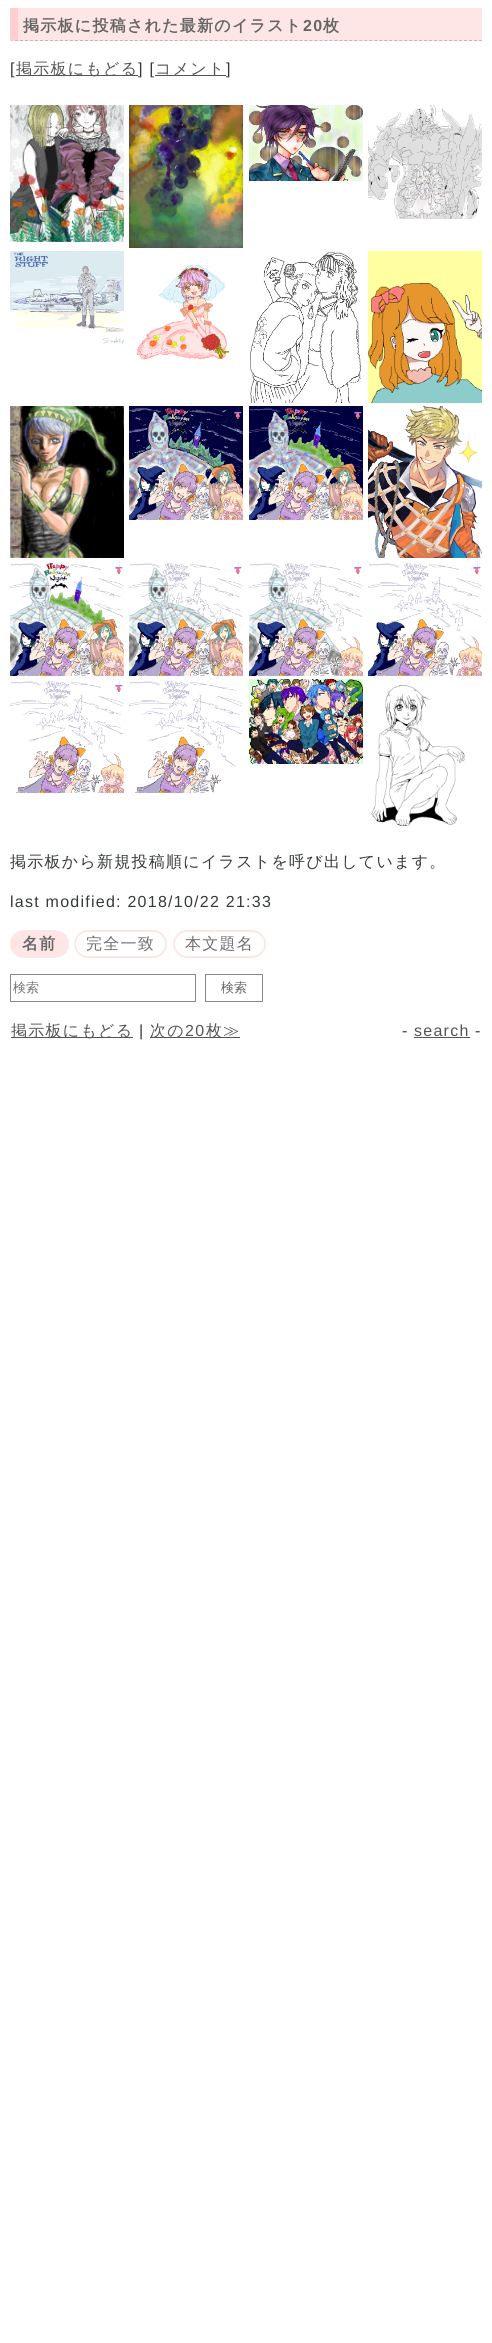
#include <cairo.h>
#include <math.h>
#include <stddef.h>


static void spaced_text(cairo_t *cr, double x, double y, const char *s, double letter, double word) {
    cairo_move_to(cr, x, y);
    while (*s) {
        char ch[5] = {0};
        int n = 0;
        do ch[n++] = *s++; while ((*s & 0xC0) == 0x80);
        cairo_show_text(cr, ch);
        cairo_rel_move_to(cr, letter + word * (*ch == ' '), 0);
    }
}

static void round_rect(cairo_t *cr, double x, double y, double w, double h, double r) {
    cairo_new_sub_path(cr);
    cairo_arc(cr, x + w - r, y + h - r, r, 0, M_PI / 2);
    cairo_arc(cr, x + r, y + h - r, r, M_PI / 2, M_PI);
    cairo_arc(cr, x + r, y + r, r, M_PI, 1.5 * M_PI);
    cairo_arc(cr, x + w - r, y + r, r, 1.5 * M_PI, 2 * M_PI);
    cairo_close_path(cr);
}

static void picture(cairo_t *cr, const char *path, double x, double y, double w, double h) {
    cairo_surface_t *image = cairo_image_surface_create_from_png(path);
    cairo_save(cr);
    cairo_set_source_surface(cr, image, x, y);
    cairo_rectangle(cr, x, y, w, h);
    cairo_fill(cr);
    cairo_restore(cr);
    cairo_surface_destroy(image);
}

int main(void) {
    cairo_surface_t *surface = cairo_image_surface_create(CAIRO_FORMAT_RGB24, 492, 2343);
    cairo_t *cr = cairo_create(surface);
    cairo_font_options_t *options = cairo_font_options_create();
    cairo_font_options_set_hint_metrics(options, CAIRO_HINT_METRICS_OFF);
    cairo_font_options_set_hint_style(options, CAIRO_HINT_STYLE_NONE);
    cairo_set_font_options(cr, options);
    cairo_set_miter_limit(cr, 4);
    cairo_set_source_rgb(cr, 1, 1, 1);
    cairo_paint(cr);
    cairo_set_source_rgb(cr, 1, 0.902, 0.902);
    cairo_rectangle(cr, 13, 8, 469, 33);
    cairo_fill(cr);
    cairo_new_path(cr);
    cairo_move_to(cr, 10, 40.5);
    cairo_line_to(cr, 482, 40.5);
    cairo_set_source_rgb(cr, 0.792, 0.702, 0.702);
    cairo_set_line_width(cr, 1);
    cairo_set_dash(cr, (double[]){3, 1.99}, 2, 0);
    cairo_stroke(cr);
    cairo_set_source_rgb(cr, 1, 0.812, 0.812);
    cairo_new_path(cr);
    cairo_move_to(cr, 10, 41);
    cairo_line_to(cr, 10, 8);
    cairo_line_to(cr, 18, 8);
    cairo_line_to(cr, 18, 40);
    cairo_close_path(cr);
    cairo_fill(cr);
    cairo_select_font_face(cr, "WenQuanYi Zen Hei", CAIRO_FONT_SLANT_NORMAL, CAIRO_FONT_WEIGHT_BOLD);
    cairo_set_font_size(cr, 16);
    cairo_set_source_rgb(cr, 0.4, 0.4, 0.4);
    spaced_text(cr, 23, 31, "掲示板に投稿された最新のイラスト", 1.25, 0);
    cairo_select_font_face(cr, "Liberation Sans", CAIRO_FONT_SLANT_NORMAL, CAIRO_FONT_WEIGHT_BOLD);
    spaced_text(cr, 303, 31, "20", 1.25, 0);
    cairo_select_font_face(cr, "WenQuanYi Zen Hei", CAIRO_FONT_SLANT_NORMAL, CAIRO_FONT_WEIGHT_BOLD);
    spaced_text(cr, 323, 31, "枚", 1.25, 0);
    cairo_select_font_face(cr, "Liberation Sans", CAIRO_FONT_SLANT_NORMAL, CAIRO_FONT_WEIGHT_NORMAL);
    cairo_set_source_rgb(cr, 0.212, 0.227, 0.227);
    spaced_text(cr, 10, 74, "[", 1.25, 0);
    cairo_set_source_rgb(cr, 0.333, 0.333, 0.333);
    cairo_rectangle(cr, 16, 75, 122, 1);
    cairo_fill(cr);
    cairo_select_font_face(cr, "WenQuanYi Zen Hei Medium", CAIRO_FONT_SLANT_NORMAL, CAIRO_FONT_WEIGHT_NORMAL);
    spaced_text(cr, 16, 74, "掲示板にもどる", 1.25, 0);
    cairo_select_font_face(cr, "Liberation Sans", CAIRO_FONT_SLANT_NORMAL, CAIRO_FONT_WEIGHT_NORMAL);
    cairo_set_source_rgb(cr, 0.212, 0.227, 0.227);
    spaced_text(cr, 138, 74, "] [", 1.25, 0);
    cairo_set_source_rgb(cr, 0.333, 0.333, 0.333);
    cairo_rectangle(cr, 155, 75, 71, 1);
    cairo_fill(cr);
    cairo_select_font_face(cr, "WenQuanYi Zen Hei Medium", CAIRO_FONT_SLANT_NORMAL, CAIRO_FONT_WEIGHT_NORMAL);
    spaced_text(cr, 155, 74, "コメント", 1.25, 0);
    cairo_select_font_face(cr, "Liberation Sans", CAIRO_FONT_SLANT_NORMAL, CAIRO_FONT_WEIGHT_NORMAL);
    cairo_set_source_rgb(cr, 0.212, 0.227, 0.227);
    spaced_text(cr, 226, 74, "]", 1.25, 0);
    picture(cr, "img1.png", 10, 105, 114, 137);
    picture(cr, "img2.png", 129, 105, 114, 143);
    picture(cr, "img3.png", 249, 105, 114, 76);
    picture(cr, "img4.png", 368, 105, 114, 114);
    picture(cr, "img5.png", 10, 251, 114, 93);
    picture(cr, "img6.png", 136, 264, 94, 96);
    picture(cr, "img7.png", 250, 252, 111, 151);
    picture(cr, "img8.png", 368, 251, 114, 152);
    picture(cr, "img9.png", 10, 406, 114, 152);
    picture(cr, "img10.png", 129, 406, 114, 114);
    picture(cr, "img11.png", 249, 406, 114, 114);
    picture(cr, "img12.png", 368, 406, 114, 152);
    picture(cr, "img13.png", 10, 561, 114, 115);
    picture(cr, "img14.png", 129, 561, 114, 115);
    picture(cr, "img15.png", 249, 561, 114, 115);
    picture(cr, "img16.png", 368, 561, 114, 115);
    picture(cr, "img17.png", 10, 679, 114, 114);
    picture(cr, "img18.png", 129, 680, 114, 113);
    picture(cr, "img19.png", 249, 679, 114, 85);
    picture(cr, "img20.png", 371, 685, 94, 141);
    cairo_select_font_face(cr, "WenQuanYi Zen Hei Medium", CAIRO_FONT_SLANT_NORMAL, CAIRO_FONT_WEIGHT_NORMAL);
    spaced_text(cr, 10, 867, "掲示板から新規投稿順にイラストを呼び出しています。", 1.25, 0);
    cairo_select_font_face(cr, "Liberation Sans", CAIRO_FONT_SLANT_NORMAL, CAIRO_FONT_WEIGHT_NORMAL);
    spaced_text(cr, 10, 907, "last modified: 2018/10/22 21:33", 1.25, 0);
    cairo_set_source_rgb(cr, 1, 0.902, 0.902);
    round_rect(cr, 11, 931, 57, 26, 13);
    cairo_fill_preserve(cr);
    cairo_set_line_width(cr, 2);
    cairo_set_dash(cr, NULL, 0, 0);
    cairo_stroke(cr);
    cairo_select_font_face(cr, "WenQuanYi Zen Hei", CAIRO_FONT_SLANT_NORMAL, CAIRO_FONT_WEIGHT_BOLD);
    cairo_set_source_rgb(cr, 0.4, 0.4, 0.4);
    spaced_text(cr, 22, 949, "名前", 1.25, 0);
    round_rect(cr, 75, 931, 91, 26, 13);
    cairo_set_source_rgb(cr, 1, 0.902, 0.902);
    cairo_stroke(cr);
    cairo_select_font_face(cr, "WenQuanYi Zen Hei Medium", CAIRO_FONT_SLANT_NORMAL, CAIRO_FONT_WEIGHT_NORMAL);
    cairo_set_source_rgb(cr, 0.435, 0.435, 0.435);
    spaced_text(cr, 86, 949, "完全一致", 1.25, 0);
    round_rect(cr, 174, 931, 91, 26, 13);
    cairo_set_source_rgb(cr, 1, 0.902, 0.902);
    cairo_stroke(cr);
    cairo_set_source_rgb(cr, 0.435, 0.435, 0.435);
    spaced_text(cr, 185, 949, "本文題名", 1.25, 0);
    cairo_rectangle(cr, 10.5, 974.5, 185, 27);
    cairo_set_source_rgb(cr, 0.533, 0.533, 0.533);
    cairo_set_line_width(cr, 1);
    cairo_stroke(cr);
    cairo_set_font_size(cr, 13);
    cairo_set_source_rgb(cr, 0.459, 0.459, 0.459);
    cairo_move_to(cr, 13, 992);
    cairo_show_text(cr, "検索");
    cairo_rectangle(cr, 205.5, 974.5, 57, 27);
    cairo_set_source_rgb(cr, 0.533, 0.533, 0.533);
    cairo_stroke(cr);
    cairo_set_source_rgb(cr, 0.4, 0.4, 0.4);
    cairo_move_to(cr, 221, 992);
    cairo_show_text(cr, "検索");
    cairo_set_source_rgb(cr, 0.333, 0.333, 0.333);
    cairo_rectangle(cr, 11, 1037, 122, 1);
    cairo_fill(cr);
    cairo_set_font_size(cr, 16);
    spaced_text(cr, 11, 1036, "掲示板にもどる", 1.25, 0);
    cairo_select_font_face(cr, "Liberation Sans", CAIRO_FONT_SLANT_NORMAL, CAIRO_FONT_WEIGHT_NORMAL);
    cairo_set_source_rgb(cr, 0.212, 0.227, 0.227);
    spaced_text(cr, 139, 1036, "|", 1.25, 0);
    cairo_set_source_rgb(cr, 0.333, 0.333, 0.333);
    cairo_rectangle(cr, 150, 1037, 90, 1);
    cairo_fill(cr);
    cairo_select_font_face(cr, "WenQuanYi Zen Hei Medium", CAIRO_FONT_SLANT_NORMAL, CAIRO_FONT_WEIGHT_NORMAL);
    spaced_text(cr, 150, 1036, "次の", 1.25, 0);
    cairo_select_font_face(cr, "Liberation Sans", CAIRO_FONT_SLANT_NORMAL, CAIRO_FONT_WEIGHT_NORMAL);
    spaced_text(cr, 185, 1036, "20", 1.25, 0);
    cairo_select_font_face(cr, "WenQuanYi Zen Hei Medium", CAIRO_FONT_SLANT_NORMAL, CAIRO_FONT_WEIGHT_NORMAL);
    spaced_text(cr, 206, 1036, "枚≫", 1.25, 0);
    cairo_select_font_face(cr, "Liberation Sans", CAIRO_FONT_SLANT_NORMAL, CAIRO_FONT_WEIGHT_NORMAL);
    cairo_set_source_rgb(cr, 0.212, 0.227, 0.227);
    spaced_text(cr, 402, 1036, "-", 1.25, 0);
    cairo_set_source_rgb(cr, 0.333, 0.333, 0.333);
    spaced_text(cr, 414, 1036, "search", 1.25, 0);
    cairo_rectangle(cr, 414, 1037, 56, 1);
    cairo_fill(cr);
    cairo_set_source_rgb(cr, 0.212, 0.227, 0.227);
    spaced_text(cr, 475, 1036, "-", 1.25, 0);
    cairo_surface_write_to_png(surface, "page.png");
    cairo_font_options_destroy(options);
    cairo_destroy(cr);
    cairo_surface_destroy(surface);
    return 0;
}
